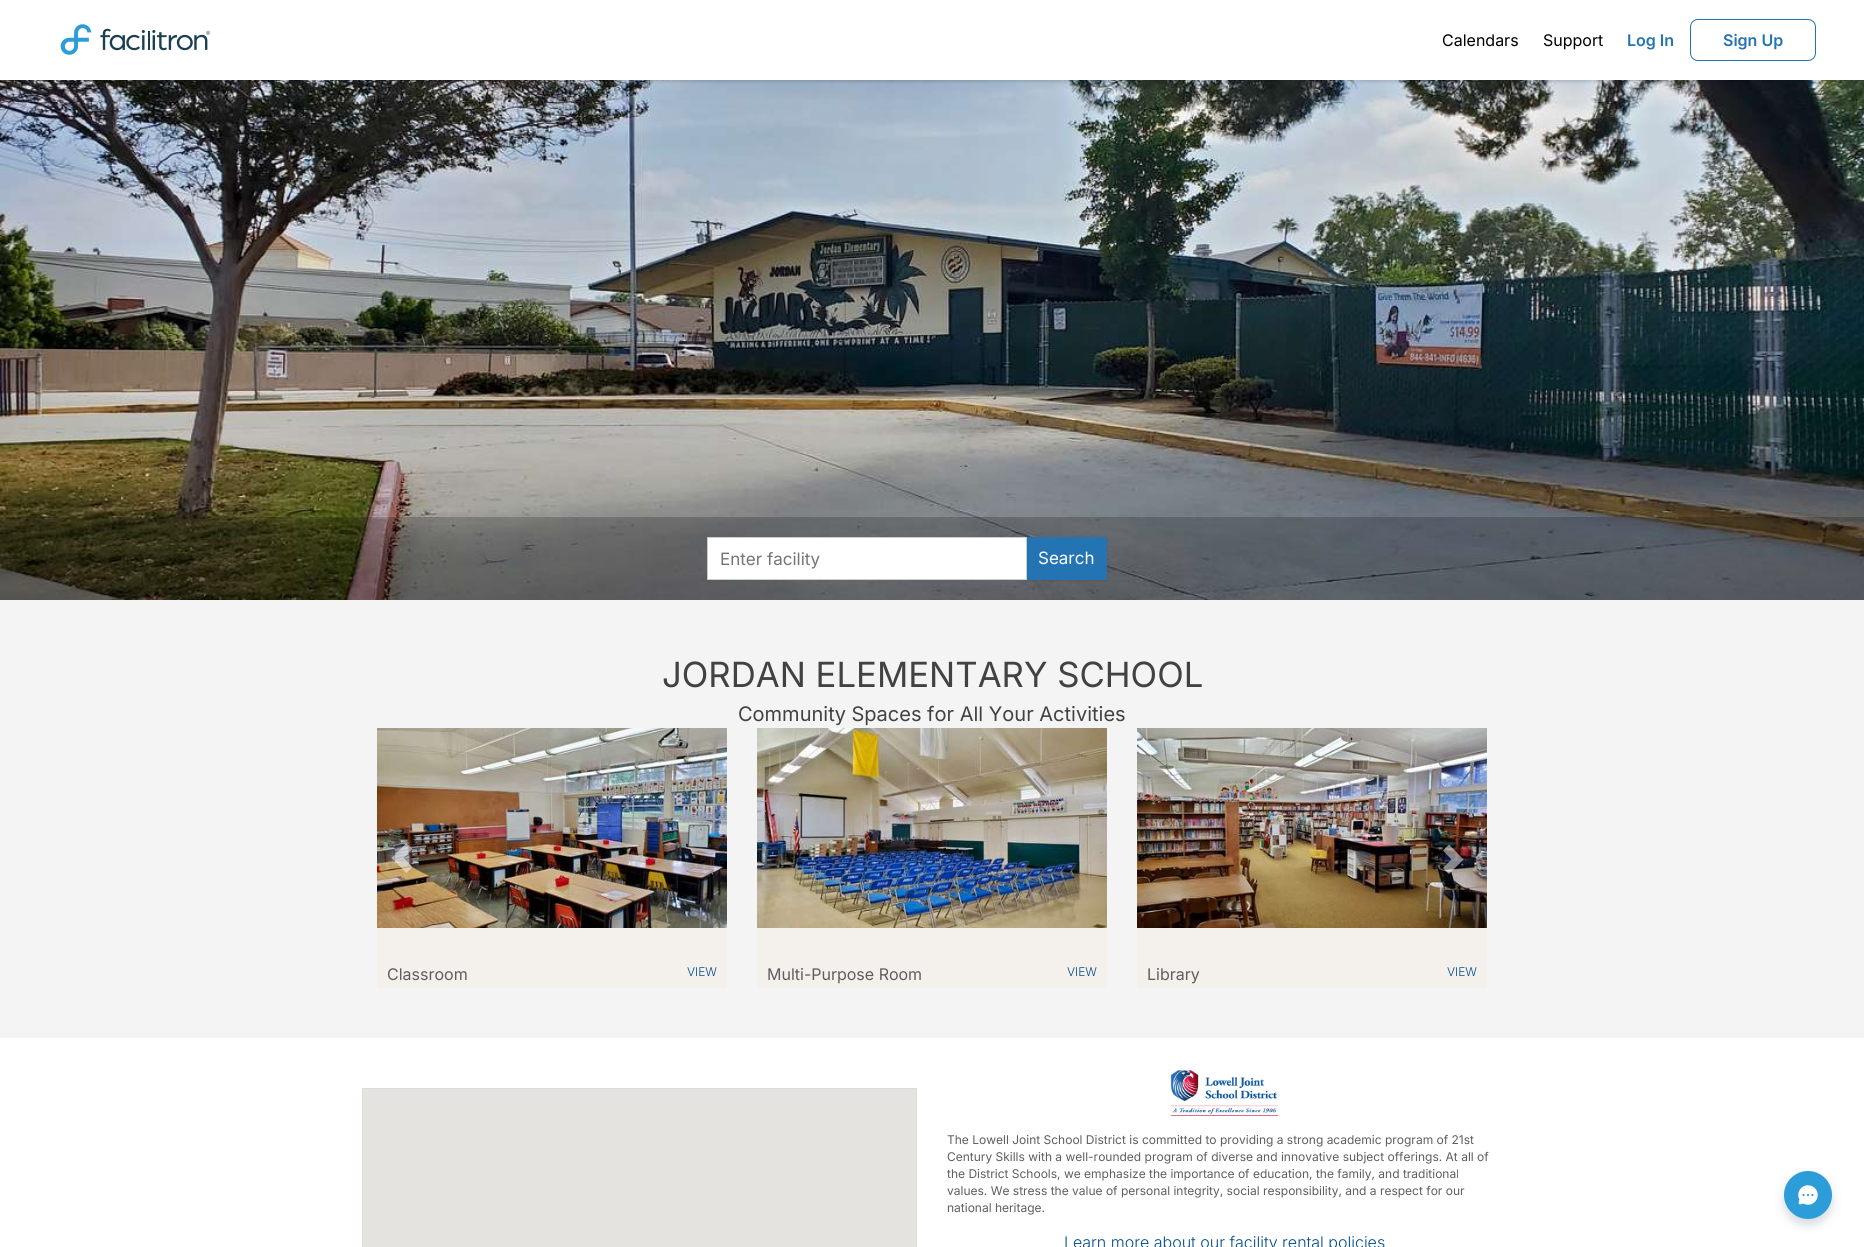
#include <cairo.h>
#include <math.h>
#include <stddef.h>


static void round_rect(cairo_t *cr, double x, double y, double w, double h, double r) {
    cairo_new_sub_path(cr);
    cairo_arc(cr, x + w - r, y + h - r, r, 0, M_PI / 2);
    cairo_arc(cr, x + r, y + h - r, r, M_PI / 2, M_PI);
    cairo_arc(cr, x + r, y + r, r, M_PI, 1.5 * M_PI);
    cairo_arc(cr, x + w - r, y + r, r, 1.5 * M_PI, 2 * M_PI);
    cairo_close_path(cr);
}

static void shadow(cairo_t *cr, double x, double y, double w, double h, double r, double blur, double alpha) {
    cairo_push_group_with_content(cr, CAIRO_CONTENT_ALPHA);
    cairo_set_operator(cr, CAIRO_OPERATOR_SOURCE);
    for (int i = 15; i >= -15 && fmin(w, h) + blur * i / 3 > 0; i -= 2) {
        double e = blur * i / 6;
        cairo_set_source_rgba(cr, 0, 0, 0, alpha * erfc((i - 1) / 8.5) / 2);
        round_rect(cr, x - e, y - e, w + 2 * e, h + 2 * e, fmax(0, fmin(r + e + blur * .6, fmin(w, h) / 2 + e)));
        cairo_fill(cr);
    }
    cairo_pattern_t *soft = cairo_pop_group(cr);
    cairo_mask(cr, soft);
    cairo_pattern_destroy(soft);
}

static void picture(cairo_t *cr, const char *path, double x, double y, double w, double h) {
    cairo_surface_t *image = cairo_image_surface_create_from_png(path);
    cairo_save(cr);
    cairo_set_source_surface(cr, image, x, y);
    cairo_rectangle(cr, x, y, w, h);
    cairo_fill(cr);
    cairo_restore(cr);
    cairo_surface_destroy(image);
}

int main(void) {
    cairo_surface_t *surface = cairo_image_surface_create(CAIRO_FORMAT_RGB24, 1864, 1247);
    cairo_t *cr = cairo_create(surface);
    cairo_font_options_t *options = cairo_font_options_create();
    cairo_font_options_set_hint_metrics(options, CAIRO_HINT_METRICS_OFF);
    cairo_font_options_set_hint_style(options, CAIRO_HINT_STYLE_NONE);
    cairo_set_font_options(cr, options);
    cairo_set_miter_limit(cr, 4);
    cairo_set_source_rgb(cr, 0.957, 0.957, 0.957);
    cairo_paint(cr);
    picture(cr, "img2.png", 0, 80, 1864, 520);
    cairo_set_source_rgb(cr, 0, 0, 0);
    shadow(cr, 0, 2, 1864, 80, 0, 2, 0.12);
    shadow(cr, 0, 0, 1864, 80, 0, 2, 0.08);
    cairo_set_source_rgb(cr, 1, 1, 1);
    cairo_rectangle(cr, 0, 0, 1864, 80);
    cairo_fill(cr);
    picture(cr, "img1.png", 60, 24, 151, 31);
    cairo_select_font_face(cr, "Inter", CAIRO_FONT_SLANT_NORMAL, CAIRO_FONT_WEIGHT_NORMAL);
    cairo_set_font_size(cr, 16);
    cairo_set_source_rgb(cr, 0, 0, 0);
    cairo_move_to(cr, 1442, 46);
    cairo_show_text(cr, "Calendars");
    cairo_move_to(cr, 1543, 46);
    cairo_show_text(cr, "Support");
    cairo_select_font_face(cr, "Inter SemiBold", CAIRO_FONT_SLANT_NORMAL, CAIRO_FONT_WEIGHT_NORMAL);
    cairo_set_source_rgb(cr, 0.141, 0.451, 0.702);
    cairo_move_to(cr, 1627, 46);
    cairo_show_text(cr, "Log In");
    round_rect(cr, 1690.5, 19.5, 125, 41, 7.5);
    cairo_set_line_width(cr, 1);
    cairo_stroke(cr);
    cairo_move_to(cr, 1723, 46);
    cairo_show_text(cr, "Sign Up");
    cairo_set_source_rgb(cr, 0, 0, 0);
    shadow(cr, 1026, 538, 81, 43, 0, 1, 0.12);
    cairo_set_source_rgb(cr, 1, 1, 1);
    cairo_rectangle(cr, 707.5, 537.5, 319, 42);
    cairo_fill_preserve(cr);
    cairo_set_source_rgb(cr, 0.8, 0.8, 0.8);
    cairo_stroke(cr);
    cairo_select_font_face(cr, "Inter", CAIRO_FONT_SLANT_NORMAL, CAIRO_FONT_WEIGHT_NORMAL);
    cairo_set_font_size(cr, 17);
    cairo_set_source_rgb(cr, 0.459, 0.459, 0.459);
    cairo_move_to(cr, 720, 565);
    cairo_show_text(cr, "Enter facility");
    cairo_set_source_rgb(cr, 0.141, 0.451, 0.702);
    cairo_rectangle(cr, 1027, 537, 80, 43);
    cairo_fill(cr);
    cairo_set_source_rgb(cr, 1, 1, 1);
    cairo_move_to(cr, 1038, 564);
    cairo_show_text(cr, "Search");
    cairo_set_font_size(cr, 34.7);
    cairo_set_source_rgb(cr, 0.259, 0.259, 0.259);
    cairo_move_to(cr, 662, 687);
    cairo_show_text(cr, "JORDAN ELEMENTARY SCHOOL");
    cairo_set_font_size(cr, 20);
    cairo_move_to(cr, 738, 721);
    cairo_show_text(cr, "Community Spaces for All Your Activities");
    picture(cr, "img3.png", 377, 728, 350, 200);
    cairo_set_source_rgba(cr, 1, 1, 1, 0.5);
    cairo_new_path(cr);
    cairo_move_to(cr, 391.5, 858);
    cairo_line_to(cr, 406.5, 873);
    cairo_line_to(cr, 412.5, 867);
    cairo_line_to(cr, 403.5, 858);
    cairo_line_to(cr, 412.5, 849);
    cairo_line_to(cr, 406.5, 843);
    cairo_close_path(cr);
    cairo_fill(cr);
    picture(cr, "img5.png", 1137, 728, 350, 200);
    cairo_new_path(cr);
    cairo_move_to(cr, 1443, 868);
    cairo_line_to(cr, 1451.5, 859.5);
    cairo_line_to(cr, 1443, 850.5);
    cairo_line_to(cr, 1449, 844.5);
    cairo_line_to(cr, 1463.5, 859.5);
    cairo_line_to(cr, 1449, 874);
    cairo_close_path(cr);
    cairo_fill(cr);
    cairo_set_source_rgb(cr, 0.957, 0.941, 0.922);
    cairo_rectangle(cr, 377, 928, 350, 60);
    cairo_fill(cr);
    cairo_set_font_size(cr, 16);
    cairo_set_source_rgb(cr, 0.369, 0.369, 0.369);
    cairo_move_to(cr, 387, 980);
    cairo_show_text(cr, "Classroom");
    cairo_select_font_face(cr, "Inter Light", CAIRO_FONT_SLANT_NORMAL, CAIRO_FONT_WEIGHT_NORMAL);
    cairo_set_font_size(cr, 12);
    cairo_set_source_rgb(cr, 0.016, 0.302, 0.537);
    cairo_move_to(cr, 687, 976);
    cairo_show_text(cr, "VIEW");
    cairo_set_source_rgb(cr, 0.957, 0.941, 0.922);
    cairo_rectangle(cr, 757, 928, 350, 60);
    cairo_fill(cr);
    picture(cr, "img4.png", 757, 728, 350, 200);
    cairo_select_font_face(cr, "Inter", CAIRO_FONT_SLANT_NORMAL, CAIRO_FONT_WEIGHT_NORMAL);
    cairo_set_font_size(cr, 16);
    cairo_set_source_rgb(cr, 0.369, 0.369, 0.369);
    cairo_move_to(cr, 767, 980);
    cairo_show_text(cr, "Multi-Purpose Room");
    cairo_select_font_face(cr, "Inter Light", CAIRO_FONT_SLANT_NORMAL, CAIRO_FONT_WEIGHT_NORMAL);
    cairo_set_font_size(cr, 12);
    cairo_set_source_rgb(cr, 0.016, 0.302, 0.537);
    cairo_move_to(cr, 1067, 976);
    cairo_show_text(cr, "VIEW");
    cairo_set_source_rgb(cr, 0.957, 0.941, 0.922);
    cairo_rectangle(cr, 1137, 928, 350, 60);
    cairo_fill(cr);
    cairo_select_font_face(cr, "Inter", CAIRO_FONT_SLANT_NORMAL, CAIRO_FONT_WEIGHT_NORMAL);
    cairo_set_font_size(cr, 16);
    cairo_set_source_rgb(cr, 0.369, 0.369, 0.369);
    cairo_move_to(cr, 1147, 980);
    cairo_show_text(cr, "Library");
    cairo_select_font_face(cr, "Inter Light", CAIRO_FONT_SLANT_NORMAL, CAIRO_FONT_WEIGHT_NORMAL);
    cairo_set_font_size(cr, 12);
    cairo_set_source_rgb(cr, 0.016, 0.302, 0.537);
    cairo_move_to(cr, 1447, 976);
    cairo_show_text(cr, "VIEW");
    cairo_set_source_rgb(cr, 1, 1, 1);
    cairo_rectangle(cr, 0, 1038, 1864, 209);
    cairo_fill(cr);
    cairo_rectangle(cr, 362.5, 1088.5, 554, 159);
    cairo_set_source_rgb(cr, 0.867, 0.867, 0.867);
    cairo_stroke(cr);
    cairo_set_source_rgb(cr, 0.898, 0.89, 0.875);
    cairo_rectangle(cr, 363, 1089, 553, 158);
    cairo_fill(cr);
    picture(cr, "img6.png", 1170, 1070, 109, 46);
    cairo_select_font_face(cr, "Inter", CAIRO_FONT_SLANT_NORMAL, CAIRO_FONT_WEIGHT_NORMAL);
    cairo_set_source_rgb(cr, 0.369, 0.369, 0.369);
    cairo_move_to(cr, 947, 1144);
    cairo_show_text(cr, "The Lowell Joint School District is committed to providing a strong academic program of 21st");
    cairo_move_to(cr, 947, 1161);
    cairo_show_text(cr, "Century Skills with a well-rounded program of diverse and innovative subject offerings. At all of");
    cairo_move_to(cr, 947, 1178);
    cairo_show_text(cr, "the District Schools, we emphasize the importance of education, the family, and traditional");
    cairo_move_to(cr, 947, 1195);
    cairo_show_text(cr, "values. We stress the value of personal integrity, social responsibility, and a respect for our");
    cairo_move_to(cr, 947, 1212);
    cairo_show_text(cr, "national heritage.");
    cairo_select_font_face(cr, "Inter Light", CAIRO_FONT_SLANT_NORMAL, CAIRO_FONT_WEIGHT_NORMAL);
    cairo_set_font_size(cr, 16);
    cairo_set_source_rgb(cr, 0.016, 0.302, 0.537);
    cairo_move_to(cr, 1064, 1248);
    cairo_show_text(cr, "Learn more about our facility rental policies");
    cairo_set_source_rgb(cr, 0.102, 0.247, 0.322);
    shadow(cr, 1784, 1177, 48, 48, 24, 5, 0.18);
    cairo_set_source_rgb(cr, 0.173, 0.616, 0.847);
    cairo_arc(cr, 1808, 1195, 24, 0, 2 * M_PI);
    cairo_fill(cr);
    picture(cr, "img7.png", 1798, 1185, 20, 20);
    cairo_surface_write_to_png(surface, "page.png");
    cairo_font_options_destroy(options);
    cairo_destroy(cr);
    cairo_surface_destroy(surface);
    return 0;
}
